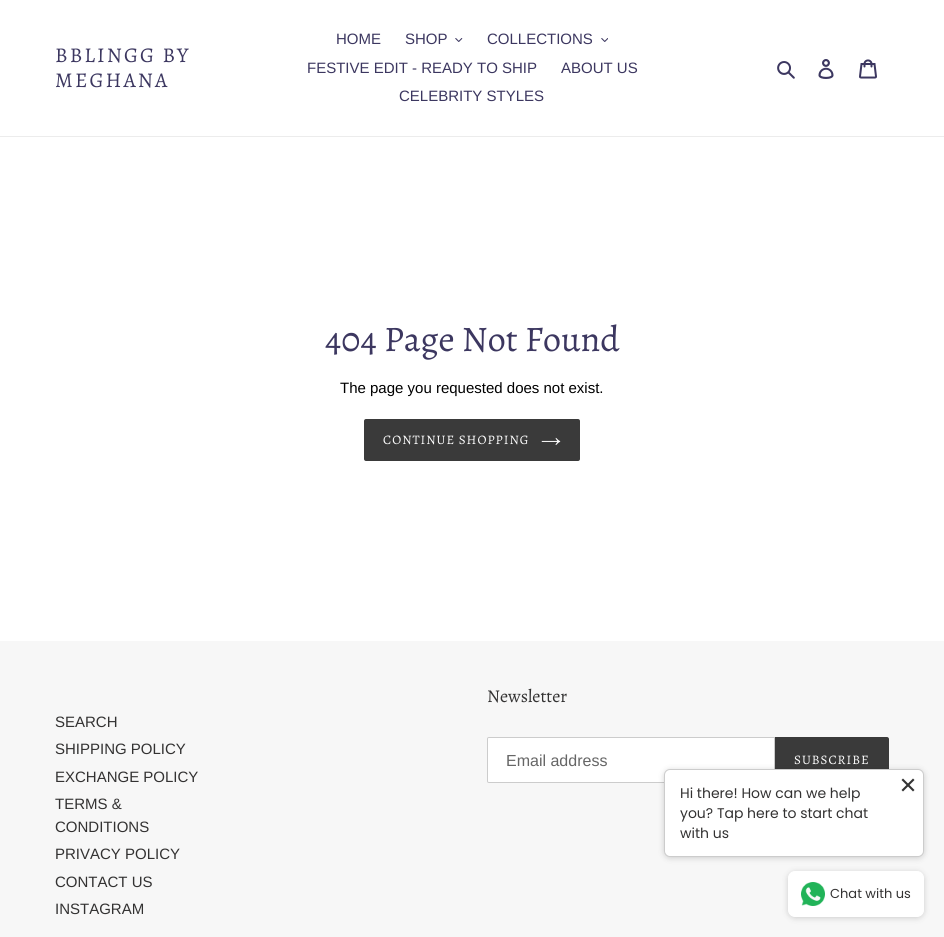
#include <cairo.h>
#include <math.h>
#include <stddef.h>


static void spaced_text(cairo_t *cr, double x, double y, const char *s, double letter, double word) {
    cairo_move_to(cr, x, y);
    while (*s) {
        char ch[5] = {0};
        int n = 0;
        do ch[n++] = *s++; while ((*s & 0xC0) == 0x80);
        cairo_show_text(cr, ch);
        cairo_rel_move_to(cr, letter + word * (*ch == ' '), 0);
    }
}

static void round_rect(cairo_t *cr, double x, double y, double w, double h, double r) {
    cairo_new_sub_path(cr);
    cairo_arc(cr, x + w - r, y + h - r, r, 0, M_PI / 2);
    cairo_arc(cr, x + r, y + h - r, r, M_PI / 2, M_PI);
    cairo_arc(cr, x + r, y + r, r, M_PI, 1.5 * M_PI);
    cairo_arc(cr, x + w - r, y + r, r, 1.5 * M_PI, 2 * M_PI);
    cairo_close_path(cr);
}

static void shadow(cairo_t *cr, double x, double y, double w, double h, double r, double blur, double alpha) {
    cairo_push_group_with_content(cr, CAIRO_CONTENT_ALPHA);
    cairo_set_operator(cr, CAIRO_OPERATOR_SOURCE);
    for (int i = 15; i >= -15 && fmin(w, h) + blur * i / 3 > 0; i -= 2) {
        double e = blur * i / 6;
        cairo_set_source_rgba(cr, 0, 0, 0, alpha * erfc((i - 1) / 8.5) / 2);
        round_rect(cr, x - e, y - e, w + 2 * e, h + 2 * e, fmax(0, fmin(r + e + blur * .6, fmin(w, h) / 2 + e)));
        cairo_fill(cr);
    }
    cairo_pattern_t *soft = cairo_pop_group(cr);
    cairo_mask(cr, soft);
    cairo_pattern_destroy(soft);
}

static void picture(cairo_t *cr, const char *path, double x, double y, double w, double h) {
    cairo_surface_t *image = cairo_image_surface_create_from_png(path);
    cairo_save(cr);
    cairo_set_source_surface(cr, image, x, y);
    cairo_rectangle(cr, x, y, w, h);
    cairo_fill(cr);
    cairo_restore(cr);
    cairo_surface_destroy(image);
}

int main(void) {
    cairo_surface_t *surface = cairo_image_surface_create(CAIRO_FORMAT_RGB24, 944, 937);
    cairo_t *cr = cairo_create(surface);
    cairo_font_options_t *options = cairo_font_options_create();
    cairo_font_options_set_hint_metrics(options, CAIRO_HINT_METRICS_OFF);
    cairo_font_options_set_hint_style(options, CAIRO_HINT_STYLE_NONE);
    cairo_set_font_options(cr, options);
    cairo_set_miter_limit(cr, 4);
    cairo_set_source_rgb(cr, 1, 1, 1);
    cairo_paint(cr);
    cairo_set_source_rgb(cr, 0.922, 0.922, 0.922);
    cairo_rectangle(cr, 0, 136, 944, 1);
    cairo_fill(cr);
    cairo_select_font_face(cr, "Alegreya", CAIRO_FONT_SLANT_NORMAL, CAIRO_FONT_WEIGHT_NORMAL);
    cairo_set_font_size(cr, 21);
    cairo_set_source_rgb(cr, 0.235, 0.216, 0.376);
    spaced_text(cr, 55, 62, "BBLINGG BY", 2.1, 0);
    spaced_text(cr, 55, 87, "MEGHANA", 2.1, 0);
    cairo_select_font_face(cr, "Arimo", CAIRO_FONT_SLANT_NORMAL, CAIRO_FONT_WEIGHT_NORMAL);
    cairo_set_font_size(cr, 15);
    cairo_move_to(cr, 336, 44);
    cairo_show_text(cr, "HOME");
    cairo_move_to(cr, 405, 44);
    cairo_show_text(cr, "SHOP");
    picture(cr, "img1.png", 455, 38, 8, 4);
    cairo_move_to(cr, 487, 44);
    cairo_show_text(cr, "COLLECTIONS");
    picture(cr, "img2.png", 601, 38, 7, 4);
    cairo_move_to(cr, 307, 73);
    cairo_show_text(cr, "FESTIVE EDIT - READY TO SHIP");
    cairo_move_to(cr, 561, 73);
    cairo_show_text(cr, "ABOUT US");
    cairo_move_to(cr, 399, 101);
    cairo_show_text(cr, "CELEBRITY STYLES");
    picture(cr, "img3.png", 777, 61, 18, 18);
    picture(cr, "img4.png", 818, 59, 16, 20);
    picture(cr, "img5.png", 859, 59, 18, 20);
    cairo_select_font_face(cr, "Alegreya", CAIRO_FONT_SLANT_NORMAL, CAIRO_FONT_WEIGHT_NORMAL);
    cairo_set_font_size(cr, 36);
    cairo_move_to(cr, 325, 351);
    cairo_show_text(cr, "404 Page Not Found");
    cairo_select_font_face(cr, "Arimo", CAIRO_FONT_SLANT_NORMAL, CAIRO_FONT_WEIGHT_NORMAL);
    cairo_set_font_size(cr, 15);
    cairo_set_source_rgb(cr, 0, 0, 0);
    cairo_move_to(cr, 340, 393);
    cairo_show_text(cr, "The page you requested does not exist.");
    cairo_set_source_rgb(cr, 0.227, 0.227, 0.227);
    round_rect(cr, 364, 419, 216, 42, 2);
    cairo_fill(cr);
    cairo_select_font_face(cr, "Alegreya", CAIRO_FONT_SLANT_NORMAL, CAIRO_FONT_WEIGHT_NORMAL);
    cairo_set_font_size(cr, 13);
    cairo_set_source_rgb(cr, 1, 1, 1);
    spaced_text(cr, 383, 444, "CONTINUE SHOPPING", 1, 0);
    picture(cr, "img6.png", 541, 437, 20, 8);
    cairo_set_source_rgb(cr, 0.965, 0.965, 0.965);
    cairo_rectangle(cr, 0, 641, 944, 296);
    cairo_fill(cr);
    cairo_select_font_face(cr, "Arimo", CAIRO_FONT_SLANT_NORMAL, CAIRO_FONT_WEIGHT_NORMAL);
    cairo_set_font_size(cr, 15);
    cairo_set_source_rgb(cr, 0.2, 0.196, 0.196);
    cairo_move_to(cr, 55, 727);
    cairo_show_text(cr, "SEARCH");
    cairo_move_to(cr, 55, 754);
    cairo_show_text(cr, "SHIPPING POLICY");
    cairo_move_to(cr, 55, 782);
    cairo_show_text(cr, "EXCHANGE POLICY");
    cairo_move_to(cr, 55, 809);
    cairo_show_text(cr, "TERMS &");
    cairo_move_to(cr, 55, 832);
    cairo_show_text(cr, "CONDITIONS");
    cairo_move_to(cr, 55, 859);
    cairo_show_text(cr, "PRIVACY POLICY");
    cairo_move_to(cr, 55, 887);
    cairo_show_text(cr, "CONTACT US");
    cairo_move_to(cr, 55, 914);
    cairo_show_text(cr, "INSTAGRAM");
    cairo_select_font_face(cr, "Alegreya", CAIRO_FONT_SLANT_NORMAL, CAIRO_FONT_WEIGHT_NORMAL);
    cairo_set_font_size(cr, 18);
    cairo_move_to(cr, 487, 702);
    cairo_show_text(cr, "Newsletter");
    cairo_set_source_rgb(cr, 1, 1, 1);
    cairo_new_path(cr);
    cairo_move_to(cr, 489, 737.5);
    cairo_line_to(cr, 774.5, 737.5);
    cairo_line_to(cr, 774.5, 782.5);
    cairo_line_to(cr, 489, 782.5);
    cairo_curve_to(cr, 488, 782.5, 487.5, 782, 487.5, 781);
    cairo_line_to(cr, 487.5, 739);
    cairo_curve_to(cr, 487.5, 738, 488, 737.5, 489, 737.5);
    cairo_close_path(cr);
    cairo_fill_preserve(cr);
    cairo_set_source_rgb(cr, 0.8, 0.8, 0.8);
    cairo_set_line_width(cr, 1);
    cairo_stroke(cr);
    cairo_select_font_face(cr, "Arimo", CAIRO_FONT_SLANT_NORMAL, CAIRO_FONT_WEIGHT_NORMAL);
    cairo_set_font_size(cr, 16);
    cairo_set_source_rgb(cr, 0.4, 0.4, 0.4);
    cairo_move_to(cr, 506, 766);
    cairo_show_text(cr, "Email address");
    cairo_set_source_rgb(cr, 0.227, 0.227, 0.227);
    cairo_new_path(cr);
    cairo_move_to(cr, 775, 737);
    cairo_line_to(cr, 887, 737);
    cairo_curve_to(cr, 888, 737, 889, 738, 889, 739);
    cairo_line_to(cr, 889, 781);
    cairo_curve_to(cr, 889, 782, 888, 783, 887, 783);
    cairo_line_to(cr, 775, 783);
    cairo_close_path(cr);
    cairo_fill(cr);
    cairo_select_font_face(cr, "Alegreya", CAIRO_FONT_SLANT_NORMAL, CAIRO_FONT_WEIGHT_NORMAL);
    cairo_set_font_size(cr, 13);
    cairo_set_source_rgb(cr, 1, 1, 1);
    spaced_text(cr, 794, 764, "SUBSCRIBE", 1, 0);
    cairo_set_source_rgb(cr, 0.106, 0.106, 0.106);
    shadow(cr, 664, 770, 260, 88, 6, 3, 0.2);
    cairo_set_source_rgb(cr, 1, 1, 1);
    round_rect(cr, 664.5, 769.5, 259, 87, 5.5);
    cairo_fill_preserve(cr);
    cairo_set_source_rgb(cr, 0.8, 0.8, 0.8);
    cairo_stroke(cr);
    cairo_set_source_rgb(cr, 0.2, 0.2, 0.2);
    cairo_new_path(cr);
    cairo_move_to(cr, 903, 778.5);
    cairo_line_to(cr, 914.5, 790);
    cairo_line_to(cr, 913, 791.5);
    cairo_line_to(cr, 901.5, 780);
    cairo_close_path(cr);
    cairo_fill(cr);
    cairo_new_path(cr);
    cairo_move_to(cr, 913, 778.5);
    cairo_line_to(cr, 914.5, 780);
    cairo_line_to(cr, 903, 791.5);
    cairo_line_to(cr, 901.5, 790);
    cairo_close_path(cr);
    cairo_fill(cr);
    cairo_select_font_face(cr, "Poppins", CAIRO_FONT_SLANT_NORMAL, CAIRO_FONT_WEIGHT_NORMAL);
    cairo_set_font_size(cr, 14);
    cairo_set_source_rgb(cr, 0.2, 0.196, 0.196);
    cairo_move_to(cr, 680, 798);
    cairo_show_text(cr, "Hi there! How can we help");
    cairo_move_to(cr, 680, 818);
    cairo_show_text(cr, "you? Tap here to start chat");
    cairo_move_to(cr, 680, 838);
    cairo_show_text(cr, "with us");
    cairo_set_source_rgb(cr, 0.106, 0.106, 0.106);
    shadow(cr, 788, 872, 136, 46, 7, 3, 0.2);
    cairo_set_source_rgb(cr, 1, 1, 1);
    round_rect(cr, 788.5, 871.5, 135, 45, 6.5);
    cairo_fill_preserve(cr);
    cairo_stroke(cr);
    picture(cr, "img7.png", 801, 882, 24, 24);
    cairo_set_font_size(cr, 13);
    cairo_set_source_rgb(cr, 0.2, 0.196, 0.196);
    cairo_move_to(cr, 830, 898);
    cairo_show_text(cr, "Chat with us");
    cairo_surface_write_to_png(surface, "page.png");
    cairo_font_options_destroy(options);
    cairo_destroy(cr);
    cairo_surface_destroy(surface);
    return 0;
}
